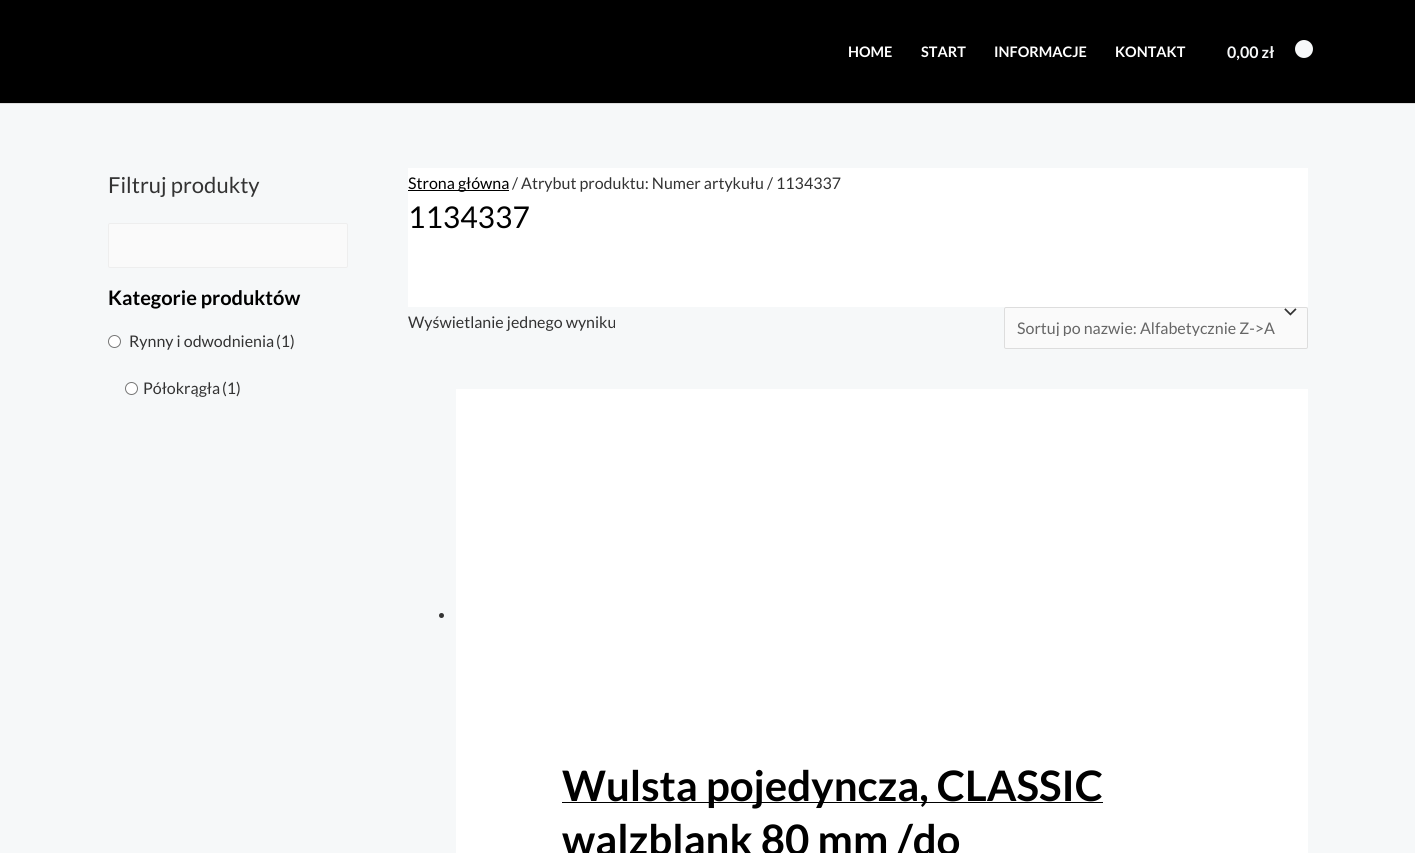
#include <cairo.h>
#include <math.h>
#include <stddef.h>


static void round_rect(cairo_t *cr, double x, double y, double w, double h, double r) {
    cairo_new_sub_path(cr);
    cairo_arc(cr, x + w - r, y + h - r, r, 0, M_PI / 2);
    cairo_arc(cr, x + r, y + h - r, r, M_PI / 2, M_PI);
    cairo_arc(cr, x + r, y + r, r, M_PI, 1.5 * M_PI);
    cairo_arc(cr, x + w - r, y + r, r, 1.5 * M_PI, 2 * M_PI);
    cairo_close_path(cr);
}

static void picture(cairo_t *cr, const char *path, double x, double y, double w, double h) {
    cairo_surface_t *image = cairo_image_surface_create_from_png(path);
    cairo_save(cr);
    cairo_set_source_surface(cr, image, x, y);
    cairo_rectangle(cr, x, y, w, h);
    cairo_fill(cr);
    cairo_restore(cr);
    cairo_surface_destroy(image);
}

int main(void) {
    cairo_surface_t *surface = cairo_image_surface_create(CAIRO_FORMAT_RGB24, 1415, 853);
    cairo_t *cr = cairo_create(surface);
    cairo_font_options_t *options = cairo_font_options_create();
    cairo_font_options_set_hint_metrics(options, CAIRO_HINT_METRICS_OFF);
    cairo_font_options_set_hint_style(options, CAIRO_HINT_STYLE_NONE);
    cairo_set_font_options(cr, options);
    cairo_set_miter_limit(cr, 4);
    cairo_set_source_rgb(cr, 0.961, 0.969, 0.976);
    cairo_paint(cr);
    cairo_set_source_rgb(cr, 0, 0, 0);
    cairo_rectangle(cr, 0, 0, 1415, 103);
    cairo_fill(cr);
    cairo_set_source_rgb(cr, 0.867, 0.867, 0.867);
    cairo_rectangle(cr, 0, 103, 1415, 1);
    cairo_fill(cr);
    cairo_select_font_face(cr, "Lato", CAIRO_FONT_SLANT_NORMAL, CAIRO_FONT_WEIGHT_BOLD);
    cairo_set_font_size(cr, 14.5);
    cairo_set_source_rgb(cr, 1, 1, 1);
    cairo_move_to(cr, 848, 57);
    cairo_show_text(cr, "HOME");
    cairo_move_to(cr, 921, 57);
    cairo_show_text(cr, "START");
    cairo_move_to(cr, 994, 57);
    cairo_show_text(cr, "INFORMACJE");
    cairo_move_to(cr, 1115, 57);
    cairo_show_text(cr, "KONTAKT");
    cairo_set_font_size(cr, 16);
    cairo_set_source_rgb(cr, 0.961, 0.969, 0.976);
    cairo_move_to(cr, 1227, 58);
    cairo_show_text(cr, "0,00 zł");
    cairo_new_path(cr);
    cairo_arc(cr, 1304, 49, 9, 0, 2 * M_PI);
    cairo_fill(cr);
    cairo_select_font_face(cr, "Lato", CAIRO_FONT_SLANT_NORMAL, CAIRO_FONT_WEIGHT_NORMAL);
    cairo_set_font_size(cr, 22);
    cairo_set_source_rgb(cr, 0.2, 0.2, 0.2);
    cairo_move_to(cr, 108, 193);
    cairo_show_text(cr, "Filtruj produkty");
    cairo_set_source_rgb(cr, 0.98, 0.98, 0.98);
    round_rect(cr, 108.5, 223.5, 239, 44, 1.5);
    cairo_fill_preserve(cr);
    cairo_set_source_rgb(cr, 0.933, 0.933, 0.933);
    cairo_set_line_width(cr, 1);
    cairo_stroke(cr);
    cairo_select_font_face(cr, "Lato", CAIRO_FONT_SLANT_NORMAL, CAIRO_FONT_WEIGHT_BOLD);
    cairo_set_font_size(cr, 20);
    cairo_set_source_rgb(cr, 0, 0, 0);
    cairo_move_to(cr, 108, 305);
    cairo_show_text(cr, "Kategorie produktów");
    cairo_set_source_rgb(cr, 1, 1, 1);
    cairo_new_path(cr);
    cairo_arc(cr, 114.5, 341.5, 6, 0, 2 * M_PI);
    cairo_fill_preserve(cr);
    cairo_set_source_rgb(cr, 0.463, 0.463, 0.463);
    cairo_stroke(cr);
    cairo_select_font_face(cr, "Lato", CAIRO_FONT_SLANT_NORMAL, CAIRO_FONT_WEIGHT_NORMAL);
    cairo_set_font_size(cr, 16);
    cairo_set_source_rgb(cr, 0.2, 0.2, 0.2);
    cairo_move_to(cr, 129, 347);
    cairo_show_text(cr, "Rynny i odwodnienia");
    cairo_move_to(cr, 276, 347);
    cairo_show_text(cr, "(1)");
    cairo_set_source_rgb(cr, 1, 1, 1);
    cairo_new_path(cr);
    cairo_arc(cr, 131.5, 388.5, 6, 0, 2 * M_PI);
    cairo_fill_preserve(cr);
    cairo_set_source_rgb(cr, 0.463, 0.463, 0.463);
    cairo_stroke(cr);
    cairo_set_source_rgb(cr, 0.2, 0.2, 0.2);
    cairo_move_to(cr, 143, 394);
    cairo_show_text(cr, "Półokrągła");
    cairo_move_to(cr, 222, 394);
    cairo_show_text(cr, "(1)");
    cairo_set_source_rgb(cr, 1, 1, 1);
    cairo_rectangle(cr, 408, 168, 900, 139);
    cairo_fill(cr);
    cairo_set_source_rgb(cr, 0, 0, 0);
    cairo_rectangle(cr, 408, 190, 101, 1);
    cairo_fill(cr);
    cairo_move_to(cr, 408, 189);
    cairo_show_text(cr, "Strona główna");
    cairo_set_source_rgb(cr, 0.2, 0.2, 0.2);
    cairo_move_to(cr, 512, 189);
    cairo_show_text(cr, "/ Atrybut produktu: Numer artykułu / 1134337");
    cairo_set_font_size(cr, 30);
    cairo_set_source_rgb(cr, 0, 0, 0);
    cairo_move_to(cr, 408, 228);
    cairo_show_text(cr, "1134337");
    cairo_set_font_size(cr, 16);
    cairo_set_source_rgb(cr, 0.2, 0.2, 0.2);
    cairo_move_to(cr, 408, 328);
    cairo_show_text(cr, "Wyświetlanie jednego wyniku");
    cairo_set_source_rgb(cr, 0.98, 0.98, 0.98);
    round_rect(cr, 1004, 307, 304, 42, 2);
    cairo_fill(cr);
    picture(cr, "img1.png", 1284, 308, 13, 8);
    round_rect(cr, 1004.5, 307.5, 303, 41, 1.5);
    cairo_set_source_rgb(cr, 0.867, 0.867, 0.867);
    cairo_stroke(cr);
    cairo_save(cr);
    cairo_rectangle(cr, 1017, 320, 258, 16);
    cairo_clip(cr);
    cairo_set_source_rgb(cr, 0.4, 0.4, 0.4);
    cairo_move_to(cr, 1017, 334);
    cairo_show_text(cr, "Sortuj po nazwie: Alfabetycznie Z->A");
    cairo_restore(cr);
    cairo_set_source_rgb(cr, 1, 1, 1);
    cairo_rectangle(cr, 456, 389, 852, 464);
    cairo_fill(cr);
    cairo_set_source_rgb(cr, 0.2, 0.2, 0.2);
    cairo_arc(cr, 441.5, 615.5, 2.5, 0, 2 * M_PI);
    cairo_fill(cr);
    cairo_set_source_rgb(cr, 0, 0, 0);
    cairo_rectangle(cr, 562, 802, 541, 1);
    cairo_fill(cr);
    cairo_select_font_face(cr, "Lato", CAIRO_FONT_SLANT_NORMAL, CAIRO_FONT_WEIGHT_BOLD);
    cairo_set_font_size(cr, 42);
    cairo_move_to(cr, 562, 801);
    cairo_show_text(cr, "Wulsta pojedyncza, CLASSIC");
    cairo_move_to(cr, 562, 855);
    cairo_show_text(cr, "walzblank 80 mm /do");
    cairo_surface_write_to_png(surface, "page.png");
    cairo_font_options_destroy(options);
    cairo_destroy(cr);
    cairo_surface_destroy(surface);
    return 0;
}
